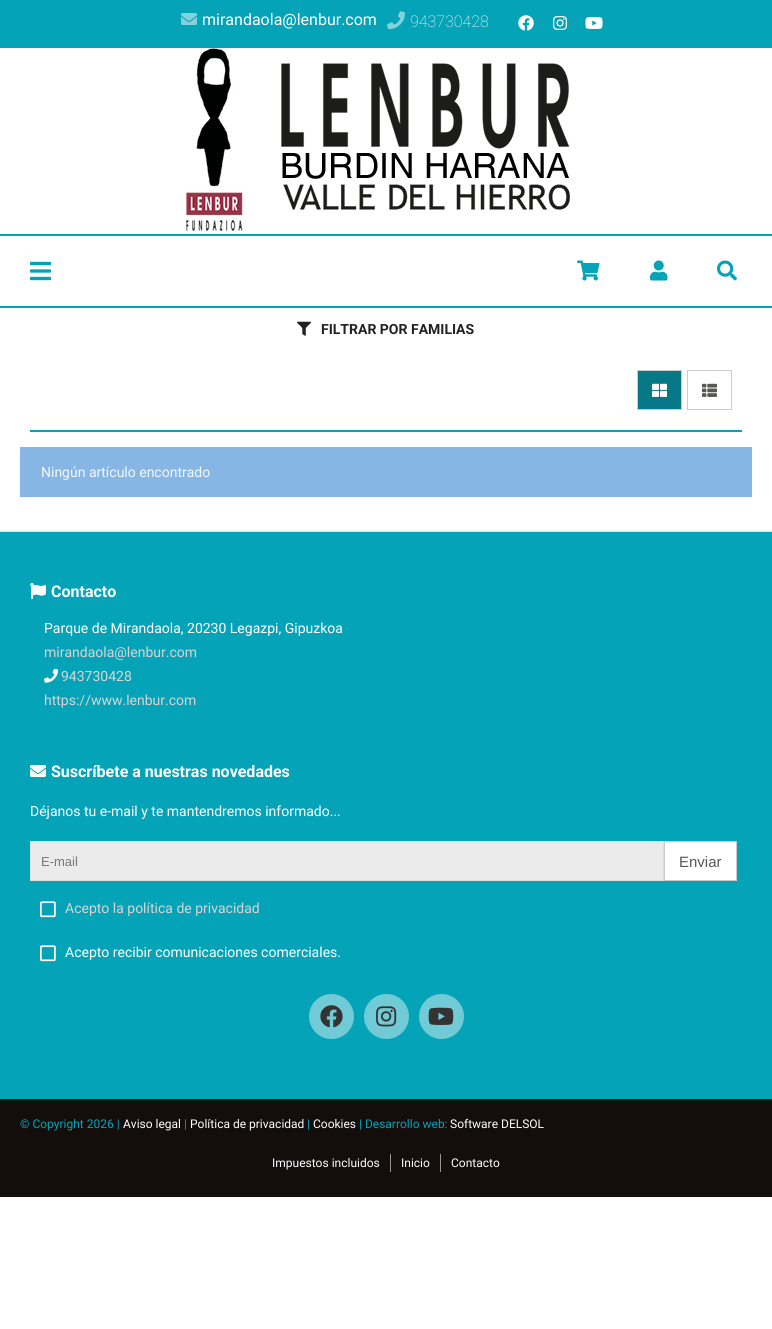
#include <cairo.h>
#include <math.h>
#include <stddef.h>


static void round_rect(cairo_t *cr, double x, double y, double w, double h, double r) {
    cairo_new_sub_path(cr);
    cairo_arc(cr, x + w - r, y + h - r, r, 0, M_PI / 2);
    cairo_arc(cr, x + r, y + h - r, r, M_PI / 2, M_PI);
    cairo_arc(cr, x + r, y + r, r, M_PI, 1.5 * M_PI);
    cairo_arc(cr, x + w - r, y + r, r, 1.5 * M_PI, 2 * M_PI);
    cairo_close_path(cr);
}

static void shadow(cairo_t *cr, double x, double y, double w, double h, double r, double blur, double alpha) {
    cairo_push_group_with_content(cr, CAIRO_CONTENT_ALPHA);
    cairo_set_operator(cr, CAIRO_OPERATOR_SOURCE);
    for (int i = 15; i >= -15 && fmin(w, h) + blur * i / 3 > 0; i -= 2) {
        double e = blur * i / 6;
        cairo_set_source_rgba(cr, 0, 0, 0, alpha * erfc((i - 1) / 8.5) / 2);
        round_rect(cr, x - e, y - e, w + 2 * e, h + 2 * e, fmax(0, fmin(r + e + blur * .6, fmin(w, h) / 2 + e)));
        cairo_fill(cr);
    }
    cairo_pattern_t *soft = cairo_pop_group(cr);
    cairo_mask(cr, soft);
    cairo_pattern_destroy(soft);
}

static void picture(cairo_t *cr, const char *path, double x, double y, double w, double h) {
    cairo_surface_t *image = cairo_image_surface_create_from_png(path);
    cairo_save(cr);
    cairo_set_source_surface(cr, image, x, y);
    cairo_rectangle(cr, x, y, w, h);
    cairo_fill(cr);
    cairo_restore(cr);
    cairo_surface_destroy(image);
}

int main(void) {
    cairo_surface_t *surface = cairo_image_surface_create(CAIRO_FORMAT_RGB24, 772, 1329);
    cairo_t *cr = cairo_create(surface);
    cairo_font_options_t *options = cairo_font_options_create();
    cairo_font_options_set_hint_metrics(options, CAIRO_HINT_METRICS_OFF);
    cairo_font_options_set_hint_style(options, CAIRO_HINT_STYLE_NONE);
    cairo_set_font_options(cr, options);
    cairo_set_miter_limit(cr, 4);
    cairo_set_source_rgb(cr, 1, 1, 1);
    cairo_paint(cr);
    cairo_set_source_rgb(cr, 0.016, 0.639, 0.718);
    cairo_rectangle(cr, 0, 0, 772, 48);
    cairo_fill(cr);
    picture(cr, "img1.png", 181, 13, 16, 12);
    cairo_select_font_face(cr, "Roboto", CAIRO_FONT_SLANT_NORMAL, CAIRO_FONT_WEIGHT_NORMAL);
    cairo_set_font_size(cr, 16);
    cairo_set_source_rgb(cr, 1, 1, 1);
    cairo_move_to(cr, 202, 25);
    cairo_show_text(cr, "mirandaola@lenbur.com");
    picture(cr, "img2.png", 387, 11, 18, 19);
    cairo_select_font_face(cr, "Roboto Thin", CAIRO_FONT_SLANT_NORMAL, CAIRO_FONT_WEIGHT_NORMAL);
    cairo_move_to(cr, 410, 27);
    cairo_show_text(cr, "943730428");
    picture(cr, "img3.png", 518, 15, 16, 16);
    picture(cr, "img4.png", 553, 16, 15, 14);
    picture(cr, "img5.png", 585, 17, 18, 12);
    picture(cr, "img6.png", 186, 48, 384, 183);
    cairo_set_source_rgb(cr, 0.016, 0.639, 0.718);
    cairo_rectangle(cr, 0, 234, 772, 2);
    cairo_fill(cr);
    cairo_rectangle(cr, 0, 306, 772, 2);
    cairo_fill(cr);
    picture(cr, "img7.png", 30, 261, 21, 20);
    picture(cr, "img8.png", 577, 260, 23, 21);
    picture(cr, "img9.png", 650, 260, 18, 21);
    picture(cr, "img10.png", 717, 260, 20, 21);
    picture(cr, "img11.png", 297, 321, 14, 15);
    cairo_select_font_face(cr, "Roboto", CAIRO_FONT_SLANT_NORMAL, CAIRO_FONT_WEIGHT_BOLD);
    cairo_set_font_size(cr, 14);
    cairo_set_source_rgb(cr, 0.129, 0.129, 0.129);
    cairo_move_to(cr, 321, 334);
    cairo_show_text(cr, "FILTRAR POR FAMILIAS");
    cairo_set_source_rgb(cr, 0.016, 0.639, 0.718);
    cairo_rectangle(cr, 30, 430, 712, 2);
    cairo_fill(cr);
    cairo_set_source_rgb(cr, 0.031, 0.471, 0.525);
    cairo_rectangle(cr, 637.5, 370.5, 44, 39);
    cairo_fill_preserve(cr);
    cairo_set_source_rgb(cr, 0.8, 0.8, 0.8);
    cairo_set_line_width(cr, 1);
    cairo_stroke(cr);
    picture(cr, "img12.png", 652, 383, 15, 14);
    cairo_rectangle(cr, 687.5, 370.5, 44, 39);
    cairo_stroke(cr);
    picture(cr, "img13.png", 702, 383, 15, 14);
    cairo_set_source_rgb(cr, 0.533, 0.714, 0.894);
    cairo_rectangle(cr, 20, 447, 732, 50);
    cairo_fill(cr);
    cairo_select_font_face(cr, "Roboto", CAIRO_FONT_SLANT_NORMAL, CAIRO_FONT_WEIGHT_NORMAL);
    cairo_set_source_rgb(cr, 0.937, 0.969, 1);
    cairo_move_to(cr, 41, 477);
    cairo_show_text(cr, "Ningún artículo encontrado");
    cairo_set_source_rgb(cr, 0.278, 0.286, 0.282);
    shadow(cr, 0, 531, 772, 567, 0, 1, 0.2);
    cairo_set_source_rgb(cr, 0.016, 0.639, 0.718);
    cairo_rectangle(cr, 0, 532, 772, 567);
    cairo_fill(cr);
    picture(cr, "img14.png", 30, 583, 16, 16);
    cairo_select_font_face(cr, "Roboto", CAIRO_FONT_SLANT_NORMAL, CAIRO_FONT_WEIGHT_BOLD);
    cairo_set_font_size(cr, 16);
    cairo_set_source_rgb(cr, 1, 1, 1);
    cairo_move_to(cr, 51, 597);
    cairo_show_text(cr, "Contacto");
    cairo_select_font_face(cr, "Roboto", CAIRO_FONT_SLANT_NORMAL, CAIRO_FONT_WEIGHT_NORMAL);
    cairo_set_font_size(cr, 14);
    cairo_move_to(cr, 44, 633);
    cairo_show_text(cr, "Parque de Mirandaola, 20230 Legazpi, Gipuzkoa");
    cairo_set_source_rgb(cr, 0.839, 0.839, 0.839);
    cairo_move_to(cr, 44, 657);
    cairo_show_text(cr, "mirandaola@lenbur.com");
    picture(cr, "img15.png", 44, 668, 14, 15);
    cairo_move_to(cr, 61, 681);
    cairo_show_text(cr, "943730428");
    cairo_move_to(cr, 44, 705);
    cairo_show_text(cr, "https://www.lenbur.com");
    picture(cr, "img16.png", 30, 765, 16, 12);
    cairo_select_font_face(cr, "Roboto", CAIRO_FONT_SLANT_NORMAL, CAIRO_FONT_WEIGHT_BOLD);
    cairo_set_font_size(cr, 16);
    cairo_set_source_rgb(cr, 1, 1, 1);
    cairo_move_to(cr, 51, 777);
    cairo_show_text(cr, "Suscríbete a nuestras novedades");
    cairo_select_font_face(cr, "Roboto", CAIRO_FONT_SLANT_NORMAL, CAIRO_FONT_WEIGHT_NORMAL);
    cairo_set_font_size(cr, 14);
    cairo_move_to(cr, 30, 816);
    cairo_show_text(cr, "Déjanos tu e-mail y te mantendremos informado...");
    cairo_set_source_rgb(cr, 0.918, 0.918, 0.918);
    cairo_rectangle(cr, 30.5, 841.5, 633, 39);
    cairo_fill_preserve(cr);
    cairo_set_source_rgb(cr, 0.871, 0.871, 0.871);
    cairo_stroke(cr);
    cairo_select_font_face(cr, "Liberation Sans", CAIRO_FONT_SLANT_NORMAL, CAIRO_FONT_WEIGHT_NORMAL);
    cairo_set_font_size(cr, 13);
    cairo_set_source_rgb(cr, 0.459, 0.459, 0.459);
    cairo_move_to(cr, 41, 866);
    cairo_show_text(cr, "E-mail");
    cairo_set_source_rgb(cr, 1, 1, 1);
    cairo_rectangle(cr, 664.5, 841.5, 72, 39);
    cairo_fill_preserve(cr);
    cairo_set_source_rgb(cr, 0.8, 0.8, 0.8);
    cairo_stroke(cr);
    cairo_set_font_size(cr, 15);
    cairo_set_source_rgb(cr, 0.341, 0.341, 0.337);
    cairo_move_to(cr, 679, 867);
    cairo_show_text(cr, "Enviar");
    picture(cr, "img17.png", 40, 901, 16, 17);
    cairo_select_font_face(cr, "Roboto", CAIRO_FONT_SLANT_NORMAL, CAIRO_FONT_WEIGHT_NORMAL);
    cairo_set_font_size(cr, 14);
    cairo_set_source_rgb(cr, 0.839, 0.839, 0.839);
    cairo_move_to(cr, 65, 913);
    cairo_show_text(cr, "Acepto la política de privacidad");
    picture(cr, "img17.png", 40, 945, 16, 17);
    cairo_set_source_rgb(cr, 1, 1, 1);
    cairo_move_to(cr, 65, 957);
    cairo_show_text(cr, "Acepto recibir comunicaciones comerciales.");
    cairo_set_source_rgb(cr, 0.439, 0.796, 0.839);
    cairo_new_path(cr);
    cairo_arc(cr, 331.5, 1016.5, 22.5, 0, 2 * M_PI);
    cairo_fill(cr);
    picture(cr, "img18.png", 320, 1005, 23, 23);
    cairo_arc(cr, 386.5, 1016.5, 22.5, 0, 2 * M_PI);
    cairo_fill(cr);
    picture(cr, "img19.png", 376, 1006, 21, 21);
    cairo_arc(cr, 441.5, 1016.5, 22.5, 0, 2 * M_PI);
    cairo_fill(cr);
    picture(cr, "img20.png", 428, 1007, 26, 18);
    cairo_set_source_rgb(cr, 0.075, 0.051, 0.043);
    cairo_rectangle(cr, 0, 1099, 772, 98);
    cairo_fill(cr);
    cairo_set_font_size(cr, 12);
    cairo_set_source_rgb(cr, 0.016, 0.639, 0.718);
    cairo_move_to(cr, 20, 1128);
    cairo_show_text(cr, "© Copyright 2026 |");
    cairo_set_source_rgb(cr, 1, 1, 1);
    cairo_move_to(cr, 123, 1128);
    cairo_show_text(cr, "Aviso legal");
    cairo_set_source_rgb(cr, 0.016, 0.639, 0.718);
    cairo_move_to(cr, 184, 1128);
    cairo_show_text(cr, "|");
    cairo_set_source_rgb(cr, 1, 1, 1);
    cairo_move_to(cr, 190, 1128);
    cairo_show_text(cr, "Política de privacidad");
    cairo_set_source_rgb(cr, 0.016, 0.639, 0.718);
    cairo_move_to(cr, 307, 1128);
    cairo_show_text(cr, "|");
    cairo_set_source_rgb(cr, 1, 1, 1);
    cairo_move_to(cr, 313, 1128);
    cairo_show_text(cr, "Cookies");
    cairo_set_source_rgb(cr, 0.016, 0.639, 0.718);
    cairo_move_to(cr, 359, 1128);
    cairo_show_text(cr, "| Desarrollo web:");
    cairo_set_source_rgb(cr, 1, 1, 1);
    cairo_move_to(cr, 450, 1128);
    cairo_show_text(cr, "Software DELSOL");
    cairo_move_to(cr, 272, 1167);
    cairo_show_text(cr, "Impuestos incluidos");
    cairo_set_source_rgb(cr, 0.576, 0.588, 0.58);
    cairo_rectangle(cr, 390, 1154, 1, 18);
    cairo_fill(cr);
    cairo_set_source_rgb(cr, 1, 1, 1);
    cairo_move_to(cr, 401, 1167);
    cairo_show_text(cr, "Inicio");
    cairo_set_source_rgb(cr, 0.576, 0.588, 0.58);
    cairo_rectangle(cr, 440, 1154, 1, 18);
    cairo_fill(cr);
    cairo_set_source_rgb(cr, 1, 1, 1);
    cairo_move_to(cr, 451, 1167);
    cairo_show_text(cr, "Contacto");
    cairo_surface_write_to_png(surface, "page.png");
    cairo_font_options_destroy(options);
    cairo_destroy(cr);
    cairo_surface_destroy(surface);
    return 0;
}
